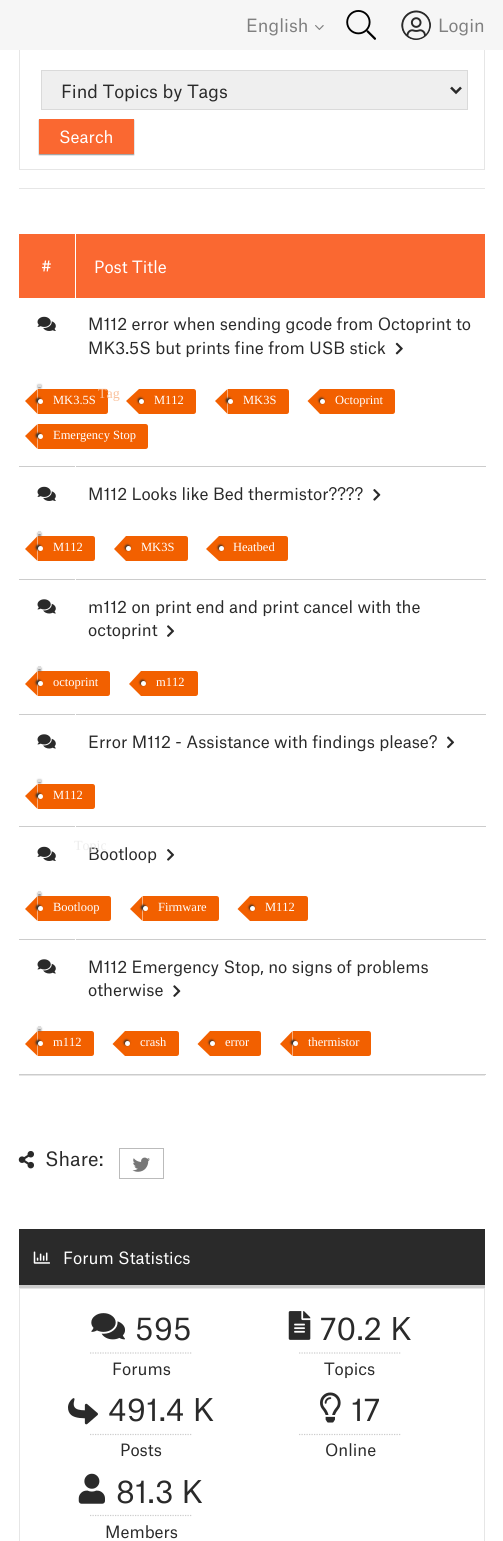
#include <cairo.h>
#include <math.h>
#include <stddef.h>


static void round_rect(cairo_t *cr, double x, double y, double w, double h, double r) {
    cairo_new_sub_path(cr);
    cairo_arc(cr, x + w - r, y + h - r, r, 0, M_PI / 2);
    cairo_arc(cr, x + r, y + h - r, r, M_PI / 2, M_PI);
    cairo_arc(cr, x + r, y + r, r, M_PI, 1.5 * M_PI);
    cairo_arc(cr, x + w - r, y + r, r, 1.5 * M_PI, 2 * M_PI);
    cairo_close_path(cr);
}

static void shadow(cairo_t *cr, double x, double y, double w, double h, double r, double blur, double alpha) {
    cairo_push_group_with_content(cr, CAIRO_CONTENT_ALPHA);
    cairo_set_operator(cr, CAIRO_OPERATOR_SOURCE);
    for (int i = 15; i >= -15 && fmin(w, h) + blur * i / 3 > 0; i -= 2) {
        double e = blur * i / 6;
        cairo_set_source_rgba(cr, 0, 0, 0, alpha * erfc((i - 1) / 8.5) / 2);
        round_rect(cr, x - e, y - e, w + 2 * e, h + 2 * e, fmax(0, fmin(r + e + blur * .6, fmin(w, h) / 2 + e)));
        cairo_fill(cr);
    }
    cairo_pattern_t *soft = cairo_pop_group(cr);
    cairo_mask(cr, soft);
    cairo_pattern_destroy(soft);
}

static void picture(cairo_t *cr, const char *path, double x, double y, double w, double h) {
    cairo_surface_t *image = cairo_image_surface_create_from_png(path);
    cairo_save(cr);
    cairo_set_source_surface(cr, image, x, y);
    cairo_rectangle(cr, x, y, w, h);
    cairo_fill(cr);
    cairo_restore(cr);
    cairo_surface_destroy(image);
}

int main(void) {
    cairo_surface_t *surface = cairo_image_surface_create(CAIRO_FORMAT_RGB24, 503, 1541);
    cairo_t *cr = cairo_create(surface);
    cairo_font_options_t *options = cairo_font_options_create();
    cairo_font_options_set_hint_metrics(options, CAIRO_HINT_METRICS_OFF);
    cairo_font_options_set_hint_style(options, CAIRO_HINT_STYLE_NONE);
    cairo_set_font_options(cr, options);
    cairo_set_miter_limit(cr, 4);
    cairo_set_source_rgb(cr, 1, 1, 1);
    cairo_paint(cr);
    cairo_rectangle(cr, 19.5, -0.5, 465, 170);
    cairo_set_source_rgb(cr, 0.902, 0.902, 0.902);
    cairo_set_line_width(cr, 1);
    cairo_stroke(cr);
    cairo_set_source_rgb(cr, 0.961, 0.961, 0.961);
    cairo_rectangle(cr, 0, 0, 503, 50);
    cairo_fill(cr);
    cairo_select_font_face(cr, "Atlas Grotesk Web", CAIRO_FONT_SLANT_NORMAL, CAIRO_FONT_WEIGHT_NORMAL);
    cairo_set_font_size(cr, 17.5);
    cairo_set_source_rgb(cr, 0.502, 0.502, 0.502);
    cairo_move_to(cr, 246, 32);
    cairo_show_text(cr, "English");
    picture(cr, "img1.png", 315, 25, 9, 5);
    picture(cr, "img2.png", 346, 10, 30, 30);
    picture(cr, "img3.png", 401, 10, 30, 30);
    cairo_move_to(cr, 438, 32);
    cairo_show_text(cr, "Login");
    cairo_set_source_rgb(cr, 0.949, 0.376, 0);
    cairo_new_path(cr);
    cairo_move_to(cr, 38, 389);
    cairo_line_to(cr, 105.5, 389);
    cairo_curve_to(cr, 107, 389, 108, 390, 108, 391.5);
    cairo_line_to(cr, 108, 411.5);
    cairo_curve_to(cr, 108, 413, 107, 414, 105.5, 414);
    cairo_line_to(cr, 38, 414);
    cairo_close_path(cr);
    cairo_fill(cr);
    cairo_new_path(cr);
    cairo_move_to(cr, 37.5, 389);
    cairo_line_to(cr, 37.5, 414);
    cairo_line_to(cr, 25, 401);
    cairo_close_path(cr);
    cairo_fill(cr);
    cairo_set_source_rgb(cr, 0.392, 0.392, 0.392);
    shadow(cr, 38, 385, 3, 3, 0, 1, 0.8);
    cairo_set_source_rgb(cr, 0.867, 0.867, 0.867);
    cairo_rectangle(cr, 38, 384, 3, 3);
    cairo_fill(cr);
    cairo_set_source_rgb(cr, 0.937, 0.937, 0.937);
    cairo_rectangle(cr, 41.5, 70.5, 426, 39);
    cairo_fill_preserve(cr);
    cairo_set_source_rgb(cr, 0.855, 0.855, 0.855);
    cairo_stroke(cr);
    cairo_new_path(cr);
    cairo_move_to(cr, 451, 87.5);
    cairo_line_to(cr, 456, 92.5);
    cairo_line_to(cr, 461, 87.5);
    cairo_set_source_rgb(cr, 0.165, 0.165, 0.165);
    cairo_set_line_width(cr, 2.5);
    cairo_stroke(cr);
    cairo_move_to(cr, 61, 98);
    cairo_show_text(cr, "Find Topics by Tags");
    cairo_set_source_rgb(cr, 0.6, 0.6, 0.6);
    shadow(cr, 39, 120, 95, 35, 0, 0.5, 1);
    cairo_set_source_rgb(cr, 0.98, 0.408, 0.192);
    cairo_rectangle(cr, 39, 119, 95, 35);
    cairo_fill(cr);
    cairo_set_font_size(cr, 16.25);
    cairo_set_source_rgb(cr, 1, 1, 1);
    cairo_move_to(cr, 59, 143);
    cairo_show_text(cr, "Search");
    cairo_set_source_rgb(cr, 0.902, 0.902, 0.902);
    cairo_rectangle(cr, 19, 188, 466, 1);
    cairo_fill(cr);
    cairo_rectangle(cr, 19, 1075, 466, 1);
    cairo_fill(cr);
    cairo_set_source_rgb(cr, 0.98, 0.408, 0.192);
    cairo_rectangle(cr, 19, 234, 466, 64);
    cairo_fill(cr);
    cairo_set_source_rgb(cr, 1, 1, 1);
    cairo_rectangle(cr, 75, 234, 1, 65);
    cairo_fill(cr);
    cairo_move_to(cr, 41, 273);
    cairo_show_text(cr, "#");
    cairo_move_to(cr, 94, 273);
    cairo_show_text(cr, "Post Title");
    picture(cr, "img4.png", 37, 316, 19, 15);
    cairo_set_source_rgb(cr, 0.165, 0.165, 0.165);
    cairo_move_to(cr, 88, 330);
    cairo_show_text(cr, "M112 error when sending gcode from Octoprint to");
    cairo_move_to(cr, 88, 354);
    cairo_show_text(cr, "MK3.5S but prints fine from USB stick");
    picture(cr, "img5.png", 395, 342, 8, 13);
    cairo_set_source_rgb(cr, 0.8, 0.8, 0.8);
    cairo_rectangle(cr, 19, 466, 467, 1);
    cairo_fill(cr);
    cairo_select_font_face(cr, "Liberation Serif", CAIRO_FONT_SLANT_NORMAL, CAIRO_FONT_WEIGHT_NORMAL);
    cairo_set_font_size(cr, 14);
    cairo_set_source_rgb(cr, 0.98, 0.757, 0.612);
    cairo_move_to(cr, 98, 398);
    cairo_show_text(cr, "Tag");
    cairo_set_source_rgb(cr, 0.949, 0.376, 0);
    cairo_new_path(cr);
    cairo_move_to(cr, 38, 424);
    cairo_line_to(cr, 145.5, 424);
    cairo_curve_to(cr, 147, 424, 148, 425, 148, 426.5);
    cairo_line_to(cr, 148, 446.5);
    cairo_curve_to(cr, 148, 448, 147, 449, 145.5, 449);
    cairo_line_to(cr, 38, 449);
    cairo_close_path(cr);
    cairo_fill(cr);
    cairo_new_path(cr);
    cairo_move_to(cr, 37.5, 424);
    cairo_line_to(cr, 37.5, 449);
    cairo_line_to(cr, 25, 436);
    cairo_close_path(cr);
    cairo_fill(cr);
    cairo_set_source_rgb(cr, 0.165, 0.165, 0.165);
    shadow(cr, 36, 433, 5, 5, 2.5, 1, 1);
    cairo_set_source_rgb(cr, 1, 1, 1);
    cairo_arc(cr, 40.5, 436.5, 2.5, 0, 2 * M_PI);
    cairo_fill(cr);
    cairo_set_font_size(cr, 12.5);
    cairo_move_to(cr, 53, 439);
    cairo_show_text(cr, "Emergency Stop");
    cairo_set_source_rgb(cr, 0.165, 0.165, 0.165);
    shadow(cr, 36, 398, 5, 5, 2.5, 1, 1);
    cairo_set_source_rgb(cr, 1, 1, 1);
    cairo_arc(cr, 40.5, 401.5, 2.5, 0, 2 * M_PI);
    cairo_fill(cr);
    cairo_move_to(cr, 53, 404);
    cairo_show_text(cr, "MK3.5S");
    cairo_set_source_rgb(cr, 0.949, 0.376, 0);
    cairo_new_path(cr);
    cairo_move_to(cr, 139, 389);
    cairo_line_to(cr, 193.5, 389);
    cairo_curve_to(cr, 195, 389, 196, 390, 196, 391.5);
    cairo_line_to(cr, 196, 411.5);
    cairo_curve_to(cr, 196, 413, 195, 414, 193.5, 414);
    cairo_line_to(cr, 139, 414);
    cairo_close_path(cr);
    cairo_fill(cr);
    cairo_new_path(cr);
    cairo_move_to(cr, 139, 389);
    cairo_line_to(cr, 139, 414);
    cairo_line_to(cr, 126, 401);
    cairo_close_path(cr);
    cairo_fill(cr);
    cairo_set_source_rgb(cr, 0.165, 0.165, 0.165);
    shadow(cr, 138, 398, 5, 5, 2.5, 1, 1);
    cairo_set_source_rgb(cr, 1, 1, 1);
    cairo_arc(cr, 141.5, 401.5, 2.5, 0, 2 * M_PI);
    cairo_fill(cr);
    cairo_move_to(cr, 154, 404);
    cairo_show_text(cr, "M112");
    cairo_set_source_rgb(cr, 0.949, 0.376, 0);
    cairo_new_path(cr);
    cairo_move_to(cr, 228, 389);
    cairo_line_to(cr, 286.5, 389);
    cairo_curve_to(cr, 288, 389, 289, 390, 289, 391.5);
    cairo_line_to(cr, 289, 411.5);
    cairo_curve_to(cr, 289, 413, 288, 414, 286.5, 414);
    cairo_line_to(cr, 228, 414);
    cairo_close_path(cr);
    cairo_fill(cr);
    cairo_new_path(cr);
    cairo_move_to(cr, 227.5, 389);
    cairo_line_to(cr, 227.5, 414);
    cairo_line_to(cr, 215, 401);
    cairo_close_path(cr);
    cairo_fill(cr);
    cairo_set_source_rgb(cr, 0.165, 0.165, 0.165);
    shadow(cr, 226, 398, 5, 5, 2.5, 1, 1);
    cairo_set_source_rgb(cr, 1, 1, 1);
    cairo_arc(cr, 230.5, 401.5, 2.5, 0, 2 * M_PI);
    cairo_fill(cr);
    cairo_move_to(cr, 243, 404);
    cairo_show_text(cr, "MK3S");
    cairo_set_source_rgb(cr, 0.949, 0.376, 0);
    cairo_new_path(cr);
    cairo_move_to(cr, 320, 389);
    cairo_line_to(cr, 392.5, 389);
    cairo_curve_to(cr, 394, 389, 395, 390, 395, 391.5);
    cairo_line_to(cr, 395, 411.5);
    cairo_curve_to(cr, 395, 413, 394, 414, 392.5, 414);
    cairo_line_to(cr, 320, 414);
    cairo_close_path(cr);
    cairo_fill(cr);
    cairo_new_path(cr);
    cairo_move_to(cr, 320, 389);
    cairo_line_to(cr, 320, 414);
    cairo_line_to(cr, 307.5, 401);
    cairo_close_path(cr);
    cairo_fill(cr);
    cairo_set_source_rgb(cr, 0.165, 0.165, 0.165);
    shadow(cr, 319, 398, 5, 5, 2.5, 1, 1);
    cairo_set_source_rgb(cr, 1, 1, 1);
    cairo_arc(cr, 322.5, 401.5, 2.5, 0, 2 * M_PI);
    cairo_fill(cr);
    cairo_move_to(cr, 335, 404);
    cairo_show_text(cr, "Octoprint");
    cairo_rectangle(cr, 75, 466, 1, 1);
    cairo_fill(cr);
    picture(cr, "img4.png", 37, 486, 19, 15);
    cairo_select_font_face(cr, "Atlas Grotesk Web", CAIRO_FONT_SLANT_NORMAL, CAIRO_FONT_WEIGHT_NORMAL);
    cairo_set_font_size(cr, 16.25);
    cairo_set_source_rgb(cr, 0.165, 0.165, 0.165);
    cairo_move_to(cr, 88, 500);
    cairo_show_text(cr, "M112 Looks like Bed thermistor?\077?\077");
    picture(cr, "img6.png", 373, 489, 8, 12);
    cairo_set_source_rgb(cr, 0.8, 0.8, 0.8);
    cairo_rectangle(cr, 19, 579, 467, 1);
    cairo_fill(cr);
    cairo_set_source_rgb(cr, 0.949, 0.376, 0);
    cairo_new_path(cr);
    cairo_move_to(cr, 38, 536);
    cairo_line_to(cr, 92.5, 536);
    cairo_curve_to(cr, 94, 536, 95, 537, 95, 538.5);
    cairo_line_to(cr, 95, 558.5);
    cairo_curve_to(cr, 95, 560, 94, 561, 92.5, 561);
    cairo_line_to(cr, 38, 561);
    cairo_close_path(cr);
    cairo_fill(cr);
    cairo_new_path(cr);
    cairo_move_to(cr, 37.5, 536);
    cairo_line_to(cr, 37.5, 561);
    cairo_line_to(cr, 25, 549);
    cairo_close_path(cr);
    cairo_fill(cr);
    cairo_set_source_rgb(cr, 0.165, 0.165, 0.165);
    shadow(cr, 36, 545, 5, 5, 2.5, 1, 1);
    cairo_set_source_rgb(cr, 1, 1, 1);
    cairo_arc(cr, 40.5, 548.5, 2.5, 0, 2 * M_PI);
    cairo_fill(cr);
    cairo_select_font_face(cr, "Liberation Serif", CAIRO_FONT_SLANT_NORMAL, CAIRO_FONT_WEIGHT_NORMAL);
    cairo_set_font_size(cr, 12.5);
    cairo_move_to(cr, 53, 551);
    cairo_show_text(cr, "M112");
    cairo_set_source_rgb(cr, 0.949, 0.376, 0);
    cairo_new_path(cr);
    cairo_move_to(cr, 126, 536);
    cairo_line_to(cr, 185.5, 536);
    cairo_curve_to(cr, 187, 536, 188, 537, 188, 538.5);
    cairo_line_to(cr, 188, 558.5);
    cairo_curve_to(cr, 188, 560, 187, 561, 185.5, 561);
    cairo_line_to(cr, 126, 561);
    cairo_close_path(cr);
    cairo_fill(cr);
    cairo_new_path(cr);
    cairo_move_to(cr, 126, 536);
    cairo_line_to(cr, 126, 561);
    cairo_line_to(cr, 114, 549);
    cairo_close_path(cr);
    cairo_fill(cr);
    cairo_set_source_rgb(cr, 0.165, 0.165, 0.165);
    shadow(cr, 125, 545, 5, 5, 2.5, 1, 1);
    cairo_set_source_rgb(cr, 1, 1, 1);
    cairo_arc(cr, 128.5, 548.5, 2.5, 0, 2 * M_PI);
    cairo_fill(cr);
    cairo_move_to(cr, 141, 551);
    cairo_show_text(cr, "MK3S");
    cairo_set_source_rgb(cr, 0.949, 0.376, 0);
    cairo_new_path(cr);
    cairo_move_to(cr, 219, 536);
    cairo_line_to(cr, 285.5, 536);
    cairo_curve_to(cr, 287, 536, 288, 537, 288, 538.5);
    cairo_line_to(cr, 288, 558.5);
    cairo_curve_to(cr, 288, 560, 287, 561, 285.5, 561);
    cairo_line_to(cr, 219, 561);
    cairo_close_path(cr);
    cairo_fill(cr);
    cairo_new_path(cr);
    cairo_move_to(cr, 219, 536);
    cairo_line_to(cr, 219, 561);
    cairo_line_to(cr, 206, 549);
    cairo_close_path(cr);
    cairo_fill(cr);
    cairo_set_source_rgb(cr, 0.165, 0.165, 0.165);
    shadow(cr, 218, 545, 5, 5, 2.5, 1, 1);
    cairo_set_source_rgb(cr, 1, 1, 1);
    cairo_arc(cr, 221.5, 548.5, 2.5, 0, 2 * M_PI);
    cairo_fill(cr);
    cairo_move_to(cr, 233, 551);
    cairo_show_text(cr, "Heatbed");
    cairo_rectangle(cr, 75, 579, 1, 1);
    cairo_fill(cr);
    picture(cr, "img7.png", 37, 599, 19, 15);
    cairo_select_font_face(cr, "Atlas Grotesk Web", CAIRO_FONT_SLANT_NORMAL, CAIRO_FONT_WEIGHT_NORMAL);
    cairo_set_font_size(cr, 16.25);
    cairo_set_source_rgb(cr, 0.165, 0.165, 0.165);
    cairo_move_to(cr, 88, 613);
    cairo_show_text(cr, "m112 on print end and print cancel with the");
    cairo_move_to(cr, 88, 636);
    cairo_show_text(cr, "octoprint");
    picture(cr, "img8.png", 167, 625, 8, 12);
    cairo_set_source_rgb(cr, 0.8, 0.8, 0.8);
    cairo_rectangle(cr, 19, 714, 467, 1);
    cairo_fill(cr);
    cairo_set_source_rgb(cr, 0.949, 0.376, 0);
    cairo_new_path(cr);
    cairo_move_to(cr, 38, 671);
    cairo_line_to(cr, 107.5, 671);
    cairo_curve_to(cr, 109, 671, 110, 672, 110, 673.5);
    cairo_line_to(cr, 110, 693.5);
    cairo_curve_to(cr, 110, 695, 109, 696, 107.5, 696);
    cairo_line_to(cr, 38, 696);
    cairo_close_path(cr);
    cairo_fill(cr);
    cairo_new_path(cr);
    cairo_move_to(cr, 37.5, 671);
    cairo_line_to(cr, 37.5, 696);
    cairo_line_to(cr, 25, 684);
    cairo_close_path(cr);
    cairo_fill(cr);
    cairo_set_source_rgb(cr, 0.165, 0.165, 0.165);
    shadow(cr, 36, 680, 5, 5, 2.5, 1, 1);
    cairo_set_source_rgb(cr, 1, 1, 1);
    cairo_arc(cr, 40.5, 683.5, 2.5, 0, 2 * M_PI);
    cairo_fill(cr);
    cairo_select_font_face(cr, "Liberation Serif", CAIRO_FONT_SLANT_NORMAL, CAIRO_FONT_WEIGHT_NORMAL);
    cairo_set_font_size(cr, 12.5);
    cairo_move_to(cr, 53, 686);
    cairo_show_text(cr, "octoprint");
    cairo_set_source_rgb(cr, 0.949, 0.376, 0);
    cairo_new_path(cr);
    cairo_move_to(cr, 141, 671);
    cairo_line_to(cr, 195.5, 671);
    cairo_curve_to(cr, 197, 671, 198, 672, 198, 673.5);
    cairo_line_to(cr, 198, 693.5);
    cairo_curve_to(cr, 198, 695, 197, 696, 195.5, 696);
    cairo_line_to(cr, 141, 696);
    cairo_close_path(cr);
    cairo_fill(cr);
    cairo_new_path(cr);
    cairo_move_to(cr, 141, 671);
    cairo_line_to(cr, 141, 696);
    cairo_line_to(cr, 129, 684);
    cairo_close_path(cr);
    cairo_fill(cr);
    cairo_set_source_rgb(cr, 0.165, 0.165, 0.165);
    shadow(cr, 140, 680, 5, 5, 2.5, 1, 1);
    cairo_set_source_rgb(cr, 1, 1, 1);
    cairo_arc(cr, 143.5, 683.5, 2.5, 0, 2 * M_PI);
    cairo_fill(cr);
    cairo_move_to(cr, 156, 686);
    cairo_show_text(cr, "m112");
    cairo_rectangle(cr, 75, 714, 1, 1);
    cairo_fill(cr);
    picture(cr, "img7.png", 37, 734, 19, 15);
    cairo_select_font_face(cr, "Atlas Grotesk Web", CAIRO_FONT_SLANT_NORMAL, CAIRO_FONT_WEIGHT_NORMAL);
    cairo_set_font_size(cr, 16.25);
    cairo_set_source_rgb(cr, 0.165, 0.165, 0.165);
    cairo_move_to(cr, 88, 748);
    cairo_show_text(cr, "Error M112 - Assistance with findings please?");
    picture(cr, "img9.png", 447, 736, 8, 13);
    cairo_set_source_rgb(cr, 0.8, 0.8, 0.8);
    cairo_rectangle(cr, 19, 826, 467, 1);
    cairo_fill(cr);
    cairo_set_source_rgb(cr, 0.949, 0.376, 0);
    cairo_new_path(cr);
    cairo_move_to(cr, 38, 784);
    cairo_line_to(cr, 92.5, 784);
    cairo_curve_to(cr, 94, 784, 95, 785, 95, 786.5);
    cairo_line_to(cr, 95, 806.5);
    cairo_curve_to(cr, 95, 808, 94, 809, 92.5, 809);
    cairo_line_to(cr, 38, 809);
    cairo_close_path(cr);
    cairo_fill(cr);
    cairo_new_path(cr);
    cairo_move_to(cr, 37.5, 784);
    cairo_line_to(cr, 37.5, 809);
    cairo_line_to(cr, 25, 796);
    cairo_close_path(cr);
    cairo_fill(cr);
    cairo_set_source_rgb(cr, 0.165, 0.165, 0.165);
    shadow(cr, 36, 793, 5, 5, 2.5, 1, 1);
    cairo_set_source_rgb(cr, 1, 1, 1);
    cairo_arc(cr, 40.5, 796.5, 2.5, 0, 2 * M_PI);
    cairo_fill(cr);
    cairo_select_font_face(cr, "Liberation Serif", CAIRO_FONT_SLANT_NORMAL, CAIRO_FONT_WEIGHT_NORMAL);
    cairo_set_font_size(cr, 12.5);
    cairo_move_to(cr, 53, 799);
    cairo_show_text(cr, "M112");
    cairo_set_source_rgb(cr, 0.8, 0.8, 0.8);
    cairo_rectangle(cr, 19, 939, 467, 1);
    cairo_fill(cr);
    cairo_select_font_face(cr, "Atlas Grotesk Web", CAIRO_FONT_SLANT_NORMAL, CAIRO_FONT_WEIGHT_NORMAL);
    cairo_set_font_size(cr, 16.25);
    cairo_set_source_rgb(cr, 0.165, 0.165, 0.165);
    cairo_move_to(cr, 88, 860);
    cairo_show_text(cr, "Bootloop");
    cairo_select_font_face(cr, "Liberation Serif", CAIRO_FONT_SLANT_NORMAL, CAIRO_FONT_WEIGHT_NORMAL);
    cairo_set_font_size(cr, 14);
    cairo_set_source_rgb(cr, 0.929, 0.929, 0.929);
    cairo_move_to(cr, 74, 850);
    cairo_show_text(cr, "Topic");
    cairo_set_source_rgb(cr, 0.949, 0.376, 0);
    cairo_new_path(cr);
    cairo_move_to(cr, 38, 896);
    cairo_line_to(cr, 108.5, 896);
    cairo_curve_to(cr, 110, 896, 111, 897, 111, 898.5);
    cairo_line_to(cr, 111, 918.5);
    cairo_curve_to(cr, 111, 920, 110, 921, 108.5, 921);
    cairo_line_to(cr, 38, 921);
    cairo_close_path(cr);
    cairo_fill(cr);
    cairo_new_path(cr);
    cairo_move_to(cr, 37.5, 896);
    cairo_line_to(cr, 37.5, 921);
    cairo_line_to(cr, 25, 909);
    cairo_close_path(cr);
    cairo_fill(cr);
    cairo_set_source_rgb(cr, 0.165, 0.165, 0.165);
    shadow(cr, 36, 905, 5, 5, 2.5, 1, 1);
    cairo_set_source_rgb(cr, 1, 1, 1);
    cairo_arc(cr, 40.5, 908.5, 2.5, 0, 2 * M_PI);
    cairo_fill(cr);
    cairo_set_font_size(cr, 12.5);
    cairo_move_to(cr, 53, 911);
    cairo_show_text(cr, "Bootloop");
    cairo_set_source_rgb(cr, 0.949, 0.376, 0);
    cairo_new_path(cr);
    cairo_move_to(cr, 143, 896);
    cairo_line_to(cr, 216.5, 896);
    cairo_curve_to(cr, 218, 896, 219, 897, 219, 898.5);
    cairo_line_to(cr, 219, 918.5);
    cairo_curve_to(cr, 219, 920, 218, 921, 216.5, 921);
    cairo_line_to(cr, 143, 921);
    cairo_close_path(cr);
    cairo_fill(cr);
    cairo_new_path(cr);
    cairo_move_to(cr, 142.5, 896);
    cairo_line_to(cr, 142.5, 921);
    cairo_line_to(cr, 130, 909);
    cairo_close_path(cr);
    cairo_fill(cr);
    cairo_set_source_rgb(cr, 0.165, 0.165, 0.165);
    shadow(cr, 141, 905, 5, 5, 2.5, 1, 1);
    cairo_set_source_rgb(cr, 1, 1, 1);
    cairo_arc(cr, 145.5, 908.5, 2.5, 0, 2 * M_PI);
    cairo_fill(cr);
    cairo_move_to(cr, 158, 911);
    cairo_show_text(cr, "Firmware");
    cairo_set_source_rgb(cr, 0.949, 0.376, 0);
    cairo_new_path(cr);
    cairo_move_to(cr, 250, 896);
    cairo_line_to(cr, 305.5, 896);
    cairo_curve_to(cr, 307, 896, 308, 897, 308, 898.5);
    cairo_line_to(cr, 308, 918.5);
    cairo_curve_to(cr, 308, 920, 307, 921, 305.5, 921);
    cairo_line_to(cr, 250, 921);
    cairo_close_path(cr);
    cairo_fill(cr);
    cairo_new_path(cr);
    cairo_move_to(cr, 250, 896);
    cairo_line_to(cr, 250, 921);
    cairo_line_to(cr, 237.5, 909);
    cairo_close_path(cr);
    cairo_fill(cr);
    cairo_set_source_rgb(cr, 0.165, 0.165, 0.165);
    shadow(cr, 249, 905, 5, 5, 2.5, 1, 1);
    cairo_set_source_rgb(cr, 1, 1, 1);
    cairo_arc(cr, 252.5, 908.5, 2.5, 0, 2 * M_PI);
    cairo_fill(cr);
    cairo_move_to(cr, 265, 911);
    cairo_show_text(cr, "M112");
    cairo_rectangle(cr, 75, 826, 1, 1);
    cairo_fill(cr);
    picture(cr, "img4.png", 37, 846, 19, 15);
    picture(cr, "img10.png", 167, 849, 8, 12);
    cairo_rectangle(cr, 75, 939, 1, 1);
    cairo_fill(cr);
    picture(cr, "img7.png", 37, 959, 19, 15);
    cairo_select_font_face(cr, "Atlas Grotesk Web", CAIRO_FONT_SLANT_NORMAL, CAIRO_FONT_WEIGHT_NORMAL);
    cairo_set_font_size(cr, 16.25);
    cairo_set_source_rgb(cr, 0.165, 0.165, 0.165);
    cairo_move_to(cr, 88, 973);
    cairo_show_text(cr, "M112 Emergency Stop, no signs of problems");
    cairo_move_to(cr, 88, 996);
    cairo_show_text(cr, "otherwise");
    picture(cr, "img11.png", 173, 985, 8, 12);
    cairo_set_source_rgb(cr, 0.8, 0.8, 0.8);
    cairo_rectangle(cr, 19, 1074, 467, 1);
    cairo_fill(cr);
    cairo_set_source_rgb(cr, 0.949, 0.376, 0);
    cairo_new_path(cr);
    cairo_move_to(cr, 38, 1031);
    cairo_line_to(cr, 91.5, 1031);
    cairo_curve_to(cr, 93, 1031, 94, 1032, 94, 1033.5);
    cairo_line_to(cr, 94, 1053.5);
    cairo_curve_to(cr, 94, 1055, 93, 1056, 91.5, 1056);
    cairo_line_to(cr, 38, 1056);
    cairo_close_path(cr);
    cairo_fill(cr);
    cairo_new_path(cr);
    cairo_move_to(cr, 37.5, 1031);
    cairo_line_to(cr, 37.5, 1056);
    cairo_line_to(cr, 25, 1044);
    cairo_close_path(cr);
    cairo_fill(cr);
    cairo_set_source_rgb(cr, 0.165, 0.165, 0.165);
    shadow(cr, 36, 1040, 5, 5, 2.5, 1, 1);
    cairo_set_source_rgb(cr, 1, 1, 1);
    cairo_arc(cr, 40.5, 1043.5, 2.5, 0, 2 * M_PI);
    cairo_fill(cr);
    cairo_select_font_face(cr, "Liberation Serif", CAIRO_FONT_SLANT_NORMAL, CAIRO_FONT_WEIGHT_NORMAL);
    cairo_set_font_size(cr, 12.5);
    cairo_move_to(cr, 53, 1046);
    cairo_show_text(cr, "m112");
    cairo_set_source_rgb(cr, 0.949, 0.376, 0);
    cairo_new_path(cr);
    cairo_move_to(cr, 125, 1031);
    cairo_line_to(cr, 176.5, 1031);
    cairo_curve_to(cr, 178, 1031, 179, 1032, 179, 1033.5);
    cairo_line_to(cr, 179, 1053.5);
    cairo_curve_to(cr, 179, 1055, 178, 1056, 176.5, 1056);
    cairo_line_to(cr, 125, 1056);
    cairo_close_path(cr);
    cairo_fill(cr);
    cairo_new_path(cr);
    cairo_move_to(cr, 125, 1031);
    cairo_line_to(cr, 125, 1056);
    cairo_line_to(cr, 112.5, 1044);
    cairo_close_path(cr);
    cairo_fill(cr);
    cairo_set_source_rgb(cr, 0.165, 0.165, 0.165);
    shadow(cr, 124, 1040, 5, 5, 2.5, 1, 1);
    cairo_set_source_rgb(cr, 1, 1, 1);
    cairo_arc(cr, 127.5, 1043.5, 2.5, 0, 2 * M_PI);
    cairo_fill(cr);
    cairo_move_to(cr, 140, 1046);
    cairo_show_text(cr, "crash");
    cairo_set_source_rgb(cr, 0.949, 0.376, 0);
    cairo_new_path(cr);
    cairo_move_to(cr, 210, 1031);
    cairo_line_to(cr, 258.5, 1031);
    cairo_curve_to(cr, 260, 1031, 261, 1032, 261, 1033.5);
    cairo_line_to(cr, 261, 1053.5);
    cairo_curve_to(cr, 261, 1055, 260, 1056, 258.5, 1056);
    cairo_line_to(cr, 210, 1056);
    cairo_close_path(cr);
    cairo_fill(cr);
    cairo_new_path(cr);
    cairo_move_to(cr, 210, 1031);
    cairo_line_to(cr, 210, 1056);
    cairo_line_to(cr, 197.5, 1044);
    cairo_close_path(cr);
    cairo_fill(cr);
    cairo_set_source_rgb(cr, 0.165, 0.165, 0.165);
    shadow(cr, 209, 1040, 5, 5, 2.5, 1, 1);
    cairo_set_source_rgb(cr, 1, 1, 1);
    cairo_arc(cr, 212.5, 1043.5, 2.5, 0, 2 * M_PI);
    cairo_fill(cr);
    cairo_move_to(cr, 225, 1046);
    cairo_show_text(cr, "error");
    cairo_set_source_rgb(cr, 0.949, 0.376, 0);
    cairo_new_path(cr);
    cairo_move_to(cr, 293, 1031);
    cairo_line_to(cr, 368.5, 1031);
    cairo_curve_to(cr, 370, 1031, 371, 1032, 371, 1033.5);
    cairo_line_to(cr, 371, 1053.5);
    cairo_curve_to(cr, 371, 1055, 370, 1056, 368.5, 1056);
    cairo_line_to(cr, 293, 1056);
    cairo_close_path(cr);
    cairo_fill(cr);
    cairo_new_path(cr);
    cairo_move_to(cr, 292.5, 1031);
    cairo_line_to(cr, 292.5, 1056);
    cairo_line_to(cr, 280, 1044);
    cairo_close_path(cr);
    cairo_fill(cr);
    cairo_set_source_rgb(cr, 0.165, 0.165, 0.165);
    shadow(cr, 291, 1040, 5, 5, 2.5, 1, 1);
    cairo_set_source_rgb(cr, 1, 1, 1);
    cairo_arc(cr, 295.5, 1043.5, 2.5, 0, 2 * M_PI);
    cairo_fill(cr);
    cairo_move_to(cr, 308, 1046);
    cairo_show_text(cr, "thermistor");
    picture(cr, "img12.png", 18, 1151, 16, 18);
    cairo_select_font_face(cr, "Atlas Grotesk Web", CAIRO_FONT_SLANT_NORMAL, CAIRO_FONT_WEIGHT_NORMAL);
    cairo_set_font_size(cr, 19);
    cairo_set_source_rgb(cr, 0.165, 0.165, 0.165);
    cairo_move_to(cr, 45, 1166);
    cairo_show_text(cr, "Share:");
    cairo_rectangle(cr, 119.5, 1148.5, 44, 30);
    cairo_set_source_rgb(cr, 0.733, 0.733, 0.733);
    cairo_set_line_width(cr, 1);
    cairo_stroke(cr);
    picture(cr, "img13.png", 132, 1157, 18, 15);
    cairo_set_source_rgb(cr, 0.165, 0.165, 0.165);
    cairo_rectangle(cr, 19, 1229, 466, 56);
    cairo_fill(cr);
    cairo_set_source_rgb(cr, 0.8, 0.8, 0.8);
    cairo_rectangle(cr, 19, 1285, 466, 3);
    cairo_fill(cr);
    picture(cr, "img14.png", 33, 1251, 17, 13);
    cairo_set_font_size(cr, 16.25);
    cairo_set_source_rgb(cr, 1, 1, 1);
    cairo_move_to(cr, 63, 1264);
    cairo_show_text(cr, "Forum Statistics");
    cairo_rectangle(cr, 19.5, 1288.5, 465, 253);
    cairo_set_source_rgb(cr, 0.902, 0.902, 0.902);
    cairo_stroke(cr);
    picture(cr, "img15.png", 91, 1313, 34, 27);
    cairo_set_font_size(cr, 30);
    cairo_set_source_rgb(cr, 0.165, 0.165, 0.165);
    cairo_move_to(cr, 135, 1340);
    cairo_show_text(cr, "595");
    cairo_new_path(cr);
    cairo_move_to(cr, 90, 1353);
    cairo_line_to(cr, 192.5, 1353);
    cairo_set_source_rgb(cr, 0.8, 0.8, 0.8);
    cairo_set_line_width(cr, 1.2);
    cairo_set_dash(cr, (double[]){1.25, 1.25}, 2, 0);
    cairo_stroke(cr);
    cairo_set_font_size(cr, 16.25);
    cairo_set_source_rgb(cr, 0.165, 0.165, 0.165);
    cairo_move_to(cr, 112, 1375);
    cairo_show_text(cr, "Forums");
    picture(cr, "img16.png", 288, 1311, 23, 29);
    cairo_set_font_size(cr, 30);
    cairo_move_to(cr, 320, 1340);
    cairo_show_text(cr, "70.2 K");
    cairo_new_path(cr);
    cairo_move_to(cr, 299, 1353);
    cairo_line_to(cr, 401, 1353);
    cairo_set_source_rgb(cr, 0.8, 0.8, 0.8);
    cairo_stroke(cr);
    cairo_set_font_size(cr, 16.25);
    cairo_set_source_rgb(cr, 0.165, 0.165, 0.165);
    cairo_move_to(cr, 324, 1375);
    cairo_show_text(cr, "Topics");
    picture(cr, "img17.png", 68, 1398, 30, 27);
    cairo_set_font_size(cr, 30);
    cairo_move_to(cr, 108, 1421);
    cairo_show_text(cr, "491.4 K");
    cairo_new_path(cr);
    cairo_move_to(cr, 90, 1434.5);
    cairo_line_to(cr, 192.5, 1434.5);
    cairo_set_source_rgb(cr, 0.8, 0.8, 0.8);
    cairo_stroke(cr);
    cairo_set_font_size(cr, 16.25);
    cairo_set_source_rgb(cr, 0.165, 0.165, 0.165);
    cairo_move_to(cr, 120, 1456);
    cairo_show_text(cr, "Posts");
    picture(cr, "img18.png", 320, 1392, 21, 31);
    cairo_set_font_size(cr, 30);
    cairo_move_to(cr, 351, 1421);
    cairo_show_text(cr, "17");
    cairo_new_path(cr);
    cairo_move_to(cr, 299, 1434.5);
    cairo_line_to(cr, 401, 1434.5);
    cairo_set_source_rgb(cr, 0.8, 0.8, 0.8);
    cairo_stroke(cr);
    cairo_set_font_size(cr, 16.25);
    cairo_set_source_rgb(cr, 0.165, 0.165, 0.165);
    cairo_move_to(cr, 325, 1456);
    cairo_show_text(cr, "Online");
    picture(cr, "img19.png", 78, 1473, 27, 31);
    cairo_set_font_size(cr, 30);
    cairo_move_to(cr, 116, 1503);
    cairo_show_text(cr, "81.3 K");
    cairo_new_path(cr);
    cairo_move_to(cr, 90, 1515.5);
    cairo_line_to(cr, 192.5, 1515.5);
    cairo_set_source_rgb(cr, 0.8, 0.8, 0.8);
    cairo_stroke(cr);
    cairo_set_font_size(cr, 16.25);
    cairo_set_source_rgb(cr, 0.165, 0.165, 0.165);
    cairo_move_to(cr, 105, 1538);
    cairo_show_text(cr, "Members");
    cairo_set_source_rgb(cr, 0.392, 0.392, 0.392);
    shadow(cr, 38, 533, 3, 3, 0, 1, 0.8);
    cairo_set_source_rgb(cr, 0.867, 0.867, 0.867);
    cairo_rectangle(cr, 38, 531, 3, 3);
    cairo_fill(cr);
    cairo_set_source_rgb(cr, 0.392, 0.392, 0.392);
    shadow(cr, 38, 668, 3, 3, 0, 1, 0.8);
    cairo_set_source_rgb(cr, 0.867, 0.867, 0.867);
    cairo_rectangle(cr, 38, 666, 3, 3);
    cairo_fill(cr);
    cairo_set_source_rgb(cr, 0.392, 0.392, 0.392);
    shadow(cr, 38, 780, 3, 3, 0, 1, 0.8);
    cairo_set_source_rgb(cr, 0.867, 0.867, 0.867);
    cairo_rectangle(cr, 38, 779, 3, 3);
    cairo_fill(cr);
    cairo_set_source_rgb(cr, 0.392, 0.392, 0.392);
    shadow(cr, 38, 893, 3, 3, 0, 1, 0.8);
    cairo_set_source_rgb(cr, 0.867, 0.867, 0.867);
    cairo_rectangle(cr, 38, 891, 3, 3);
    cairo_fill(cr);
    cairo_set_source_rgb(cr, 0.392, 0.392, 0.392);
    shadow(cr, 38, 1028, 3, 3, 0, 1, 0.8);
    cairo_set_source_rgb(cr, 0.867, 0.867, 0.867);
    cairo_rectangle(cr, 38, 1026, 3, 3);
    cairo_fill(cr);
    cairo_surface_write_to_png(surface, "page.png");
    cairo_font_options_destroy(options);
    cairo_destroy(cr);
    cairo_surface_destroy(surface);
    return 0;
}
